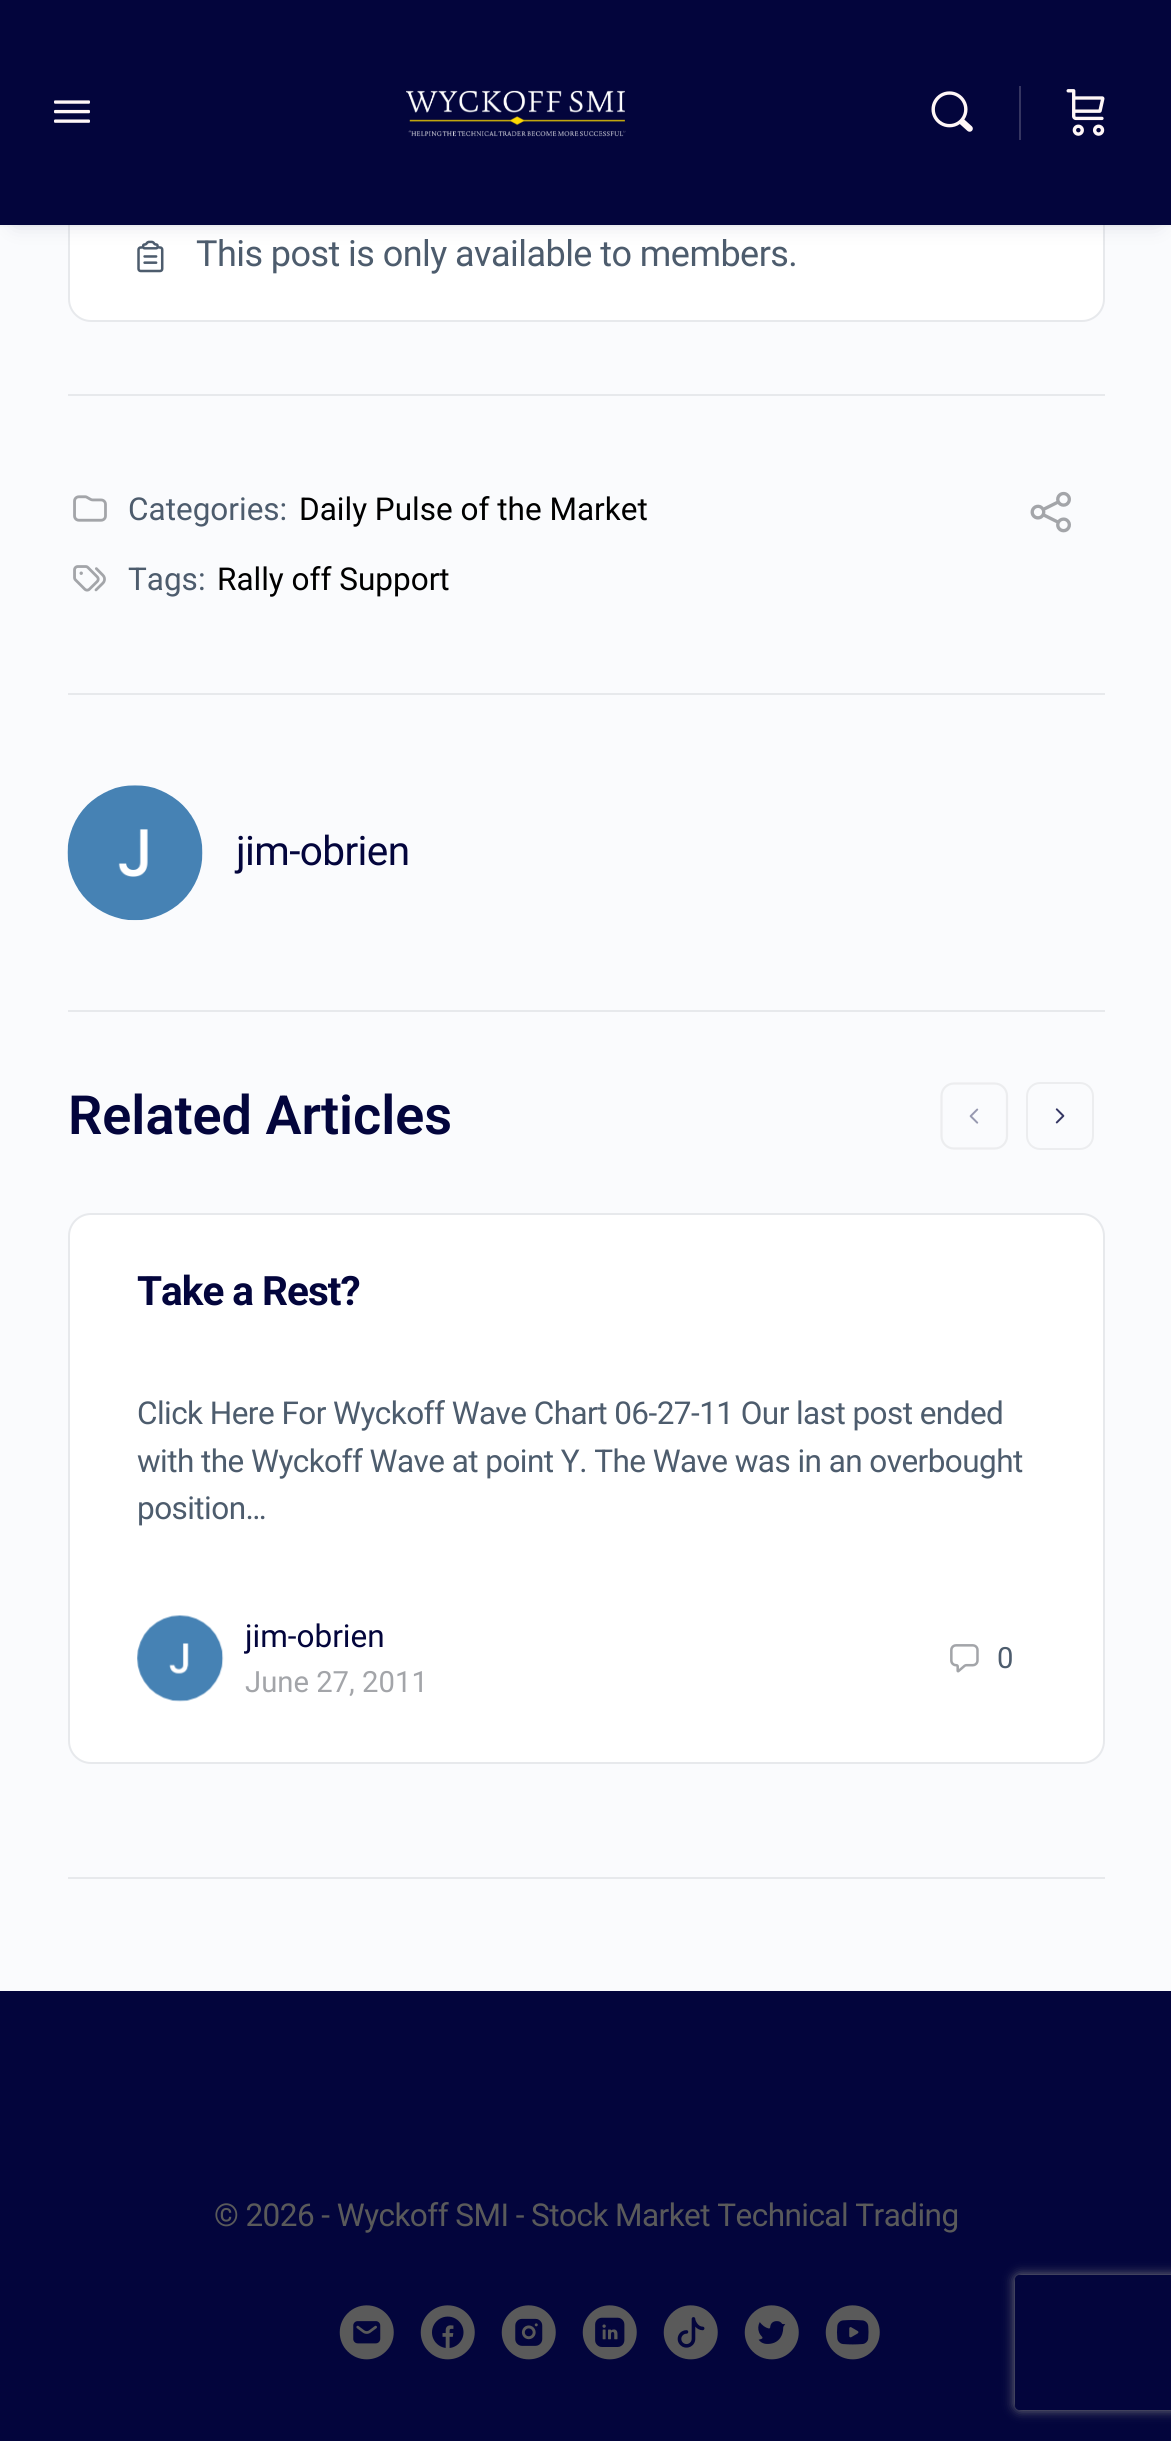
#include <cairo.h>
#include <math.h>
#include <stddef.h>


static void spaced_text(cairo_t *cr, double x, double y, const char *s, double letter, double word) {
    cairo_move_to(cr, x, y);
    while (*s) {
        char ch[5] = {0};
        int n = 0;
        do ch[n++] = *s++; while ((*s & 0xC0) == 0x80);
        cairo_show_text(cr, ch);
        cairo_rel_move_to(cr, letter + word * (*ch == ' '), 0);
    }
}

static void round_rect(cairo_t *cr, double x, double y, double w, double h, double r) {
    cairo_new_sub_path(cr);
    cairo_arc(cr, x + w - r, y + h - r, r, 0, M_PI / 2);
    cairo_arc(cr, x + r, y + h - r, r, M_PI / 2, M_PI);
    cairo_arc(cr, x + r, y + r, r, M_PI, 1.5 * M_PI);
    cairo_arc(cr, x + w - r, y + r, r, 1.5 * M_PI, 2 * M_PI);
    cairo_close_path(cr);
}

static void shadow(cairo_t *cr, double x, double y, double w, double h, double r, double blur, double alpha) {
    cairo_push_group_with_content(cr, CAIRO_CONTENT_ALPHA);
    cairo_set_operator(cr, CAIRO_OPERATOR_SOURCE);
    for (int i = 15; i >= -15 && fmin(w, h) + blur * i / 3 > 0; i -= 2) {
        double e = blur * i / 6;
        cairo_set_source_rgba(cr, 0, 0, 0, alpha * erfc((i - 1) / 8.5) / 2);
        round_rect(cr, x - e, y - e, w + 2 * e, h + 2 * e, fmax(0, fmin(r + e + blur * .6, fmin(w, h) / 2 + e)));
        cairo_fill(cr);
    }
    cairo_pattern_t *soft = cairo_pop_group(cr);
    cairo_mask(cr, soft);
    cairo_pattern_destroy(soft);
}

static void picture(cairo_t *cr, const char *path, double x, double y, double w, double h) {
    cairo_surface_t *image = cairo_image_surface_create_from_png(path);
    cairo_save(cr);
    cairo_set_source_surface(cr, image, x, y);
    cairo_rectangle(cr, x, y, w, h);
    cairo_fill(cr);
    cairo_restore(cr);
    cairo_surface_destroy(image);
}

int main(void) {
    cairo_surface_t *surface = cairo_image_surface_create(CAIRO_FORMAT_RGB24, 1171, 2441);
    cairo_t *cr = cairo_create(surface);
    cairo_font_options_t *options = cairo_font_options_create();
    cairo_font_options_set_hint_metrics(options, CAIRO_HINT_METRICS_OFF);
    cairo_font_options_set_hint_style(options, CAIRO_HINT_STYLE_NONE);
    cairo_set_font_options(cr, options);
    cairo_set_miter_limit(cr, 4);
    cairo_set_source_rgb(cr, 0.98, 0.984, 0.992);
    cairo_paint(cr);
    cairo_set_source_rgb(cr, 1, 1, 1);
    round_rect(cr, 69, 186, 1035, 135, 22);
    cairo_fill_preserve(cr);
    cairo_set_source_rgb(cr, 0.906, 0.914, 0.925);
    cairo_stroke(cr);
    picture(cr, "img5.png", 137, 240, 27, 33);
    cairo_set_source_rgb(cr, 0.255, 0.278, 0.424);
    shadow(cr, 16, 27, 1141, 194, 0, 11, 0.25);
    cairo_set_source_rgba(cr, 0.545, 0.553, 0.616, 0.05);
    cairo_rectangle(cr, 0, 225, 1171, 2);
    cairo_fill(cr);
    cairo_set_source_rgb(cr, 0.012, 0.02, 0.235);
    cairo_rectangle(cr, 0, 0, 1171, 225);
    cairo_fill(cr);
    picture(cr, "img1.png", 54, 100, 36, 23);
    picture(cr, "img2.png", 406, 90, 220, 47);
    picture(cr, "img3.png", 931, 91, 42, 41);
    cairo_set_source_rgb(cr, 0.208, 0.208, 0.38);
    cairo_rectangle(cr, 1019, 86, 2, 54);
    cairo_fill(cr);
    picture(cr, "img4.png", 1066, 89, 39, 47);
    cairo_select_font_face(cr, "Roboto", CAIRO_FONT_SLANT_NORMAL, CAIRO_FONT_WEIGHT_NORMAL);
    cairo_set_font_size(cr, 36);
    cairo_set_source_rgb(cr, 0.302, 0.361, 0.427);
    spaced_text(cr, 196, 266, "This post is only available to members.", -0.55, 0);
    cairo_set_source_rgb(cr, 0.906, 0.914, 0.925);
    cairo_rectangle(cr, 68, 394, 1037, 2);
    cairo_fill(cr);
    picture(cr, "img6.png", 73, 495, 34, 27);
    cairo_set_font_size(cr, 31.5);
    cairo_set_source_rgb(cr, 0.302, 0.361, 0.427);
    cairo_move_to(cr, 128, 520);
    cairo_show_text(cr, "Categories:");
    cairo_set_source_rgb(cr, 0, 0, 0);
    cairo_move_to(cr, 299, 520);
    cairo_show_text(cr, "Daily Pulse of the Market");
    picture(cr, "img7.png", 73, 565, 33, 27);
    cairo_set_source_rgb(cr, 0.302, 0.361, 0.427);
    cairo_move_to(cr, 128, 590);
    cairo_show_text(cr, "Tags:");
    cairo_set_source_rgb(cr, 0, 0, 0);
    cairo_move_to(cr, 217, 590);
    cairo_show_text(cr, "Rally off Support");
    picture(cr, "img8.png", 1030, 491, 41, 42);
    cairo_set_source_rgb(cr, 0.906, 0.914, 0.925);
    cairo_rectangle(cr, 68, 1010, 1037, 2);
    cairo_fill(cr);
    cairo_rectangle(cr, 68, 693, 1037, 2);
    cairo_fill(cr);
    picture(cr, "img9.png", 67, 785, 136, 136);
    cairo_set_font_size(cr, 40.5);
    cairo_set_source_rgb(cr, 0.012, 0.02, 0.235);
    spaced_text(cr, 236, 865, "jim-obrien", -0.6, 0);
    cairo_set_source_rgb(cr, 0.906, 0.914, 0.925);
    cairo_rectangle(cr, 68, 1877, 1037, 2);
    cairo_fill(cr);
    cairo_select_font_face(cr, "Roboto SemiBold", CAIRO_FONT_SLANT_NORMAL, CAIRO_FONT_WEIGHT_NORMAL);
    cairo_set_font_size(cr, 54);
    cairo_set_source_rgb(cr, 0.012, 0.02, 0.235);
    cairo_move_to(cr, 68, 1134);
    cairo_show_text(cr, "Related Articles");
    cairo_new_path(cr);
    cairo_move_to(cr, 994.5, 1148.5);
    cairo_line_to(cr, 954, 1148.5);
    cairo_curve_to(cr, 947, 1148.5, 941.5, 1143, 941.5, 1136);
    cairo_line_to(cr, 941.5, 1096);
    cairo_curve_to(cr, 941.5, 1089, 947, 1083.5, 954, 1083.5);
    cairo_line_to(cr, 994.5, 1083.5);
    cairo_curve_to(cr, 1001.5, 1083.5, 1007, 1089, 1007, 1096);
    cairo_line_to(cr, 1007, 1136);
    cairo_curve_to(cr, 1007, 1143, 1001.5, 1148.5, 994.5, 1148.5);
    cairo_close_path(cr);
    cairo_set_source_rgb(cr, 0.922, 0.929, 0.937);
    cairo_set_line_width(cr, 2.2);
    cairo_stroke(cr);
    picture(cr, "img10.png", 969, 1108, 10, 16);
    round_rect(cr, 1027, 1083, 66, 66, 13);
    cairo_set_line_width(cr, 2);
    cairo_stroke(cr);
    picture(cr, "img11.png", 1055, 1108, 10, 16);
    cairo_set_source_rgb(cr, 1, 1, 1);
    round_rect(cr, 69, 1214, 1035, 549, 22);
    cairo_fill_preserve(cr);
    cairo_set_source_rgb(cr, 0.906, 0.914, 0.925);
    cairo_stroke(cr);
    cairo_select_font_face(cr, "Roboto", CAIRO_FONT_SLANT_NORMAL, CAIRO_FONT_WEIGHT_BOLD);
    cairo_set_font_size(cr, 40.5);
    cairo_set_source_rgb(cr, 0.012, 0.02, 0.235);
    spaced_text(cr, 137, 1305, "Take a Rest?", -1, 0);
    cairo_select_font_face(cr, "Roboto", CAIRO_FONT_SLANT_NORMAL, CAIRO_FONT_WEIGHT_NORMAL);
    cairo_set_font_size(cr, 31.5);
    cairo_set_source_rgb(cr, 0.302, 0.361, 0.427);
    spaced_text(cr, 137, 1424, "Click Here For Wyckoff Wave Chart 06-27-11 Our last post ended", -0.55, 0);
    spaced_text(cr, 137, 1472, "with the Wyckoff Wave at point Y. The Wave was in an overbought", -0.55, 0);
    spaced_text(cr, 137, 1519, "position…", -0.55, 0);
    picture(cr, "img12.png", 137, 1615, 87, 87);
    cairo_set_source_rgb(cr, 0.012, 0.02, 0.235);
    cairo_move_to(cr, 245, 1647);
    cairo_show_text(cr, "jim-obrien");
    cairo_set_font_size(cr, 29.25);
    cairo_set_source_rgb(cr, 0.639, 0.647, 0.663);
    cairo_move_to(cr, 245, 1692);
    cairo_show_text(cr, "June 27, 2011");
    picture(cr, "img13.png", 950, 1644, 29, 29);
    cairo_set_source_rgb(cr, 0.302, 0.361, 0.427);
    cairo_move_to(cr, 997, 1668);
    cairo_show_text(cr, "0");
    cairo_set_source_rgb(cr, 0.012, 0.02, 0.235);
    cairo_rectangle(cr, 0, 1991, 1171, 450);
    cairo_fill(cr);
    cairo_set_font_size(cr, 31.5);
    cairo_set_source_rgb(cr, 0.353, 0.353, 0.353);
    spaced_text(cr, 214, 2226, "© 2026 - Wyckoff SMI - Stock Market Technical Trading", -0.55, 0);
    picture(cr, "img14.png", 339, 2305, 55, 55);
    picture(cr, "img15.png", 420, 2305, 55, 55);
    picture(cr, "img16.png", 501, 2305, 55, 55);
    picture(cr, "img17.png", 582, 2305, 55, 55);
    picture(cr, "img18.png", 663, 2305, 55, 55);
    picture(cr, "img19.png", 744, 2305, 55, 55);
    picture(cr, "img20.png", 825, 2305, 55, 55);
    cairo_save(cr);
    cairo_set_fill_rule(cr, CAIRO_FILL_RULE_EVEN_ODD);
    cairo_new_path(cr);
    cairo_move_to(cr, 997, 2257);
    cairo_line_to(cr, 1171, 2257);
    cairo_line_to(cr, 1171, 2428);
    cairo_line_to(cr, 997, 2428);
    cairo_close_path(cr);
    cairo_move_to(cr, 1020, 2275);
    cairo_line_to(cr, 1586, 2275);
    cairo_curve_to(cr, 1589, 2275, 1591, 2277, 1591, 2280);
    cairo_line_to(cr, 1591, 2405);
    cairo_curve_to(cr, 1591, 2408, 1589, 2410, 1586, 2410);
    cairo_line_to(cr, 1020, 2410);
    cairo_curve_to(cr, 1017, 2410, 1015, 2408, 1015, 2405);
    cairo_line_to(cr, 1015, 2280);
    cairo_curve_to(cr, 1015, 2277, 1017, 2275, 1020, 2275);
    cairo_close_path(cr);
    cairo_clip(cr);
    cairo_set_source_rgb(cr, 0.502, 0.502, 0.502);
    shadow(cr, 1015, 2275, 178, 135, 5, 5.5, 1);
    cairo_restore(cr);
    cairo_surface_write_to_png(surface, "page.png");
    cairo_font_options_destroy(options);
    cairo_destroy(cr);
    cairo_surface_destroy(surface);
    return 0;
}
